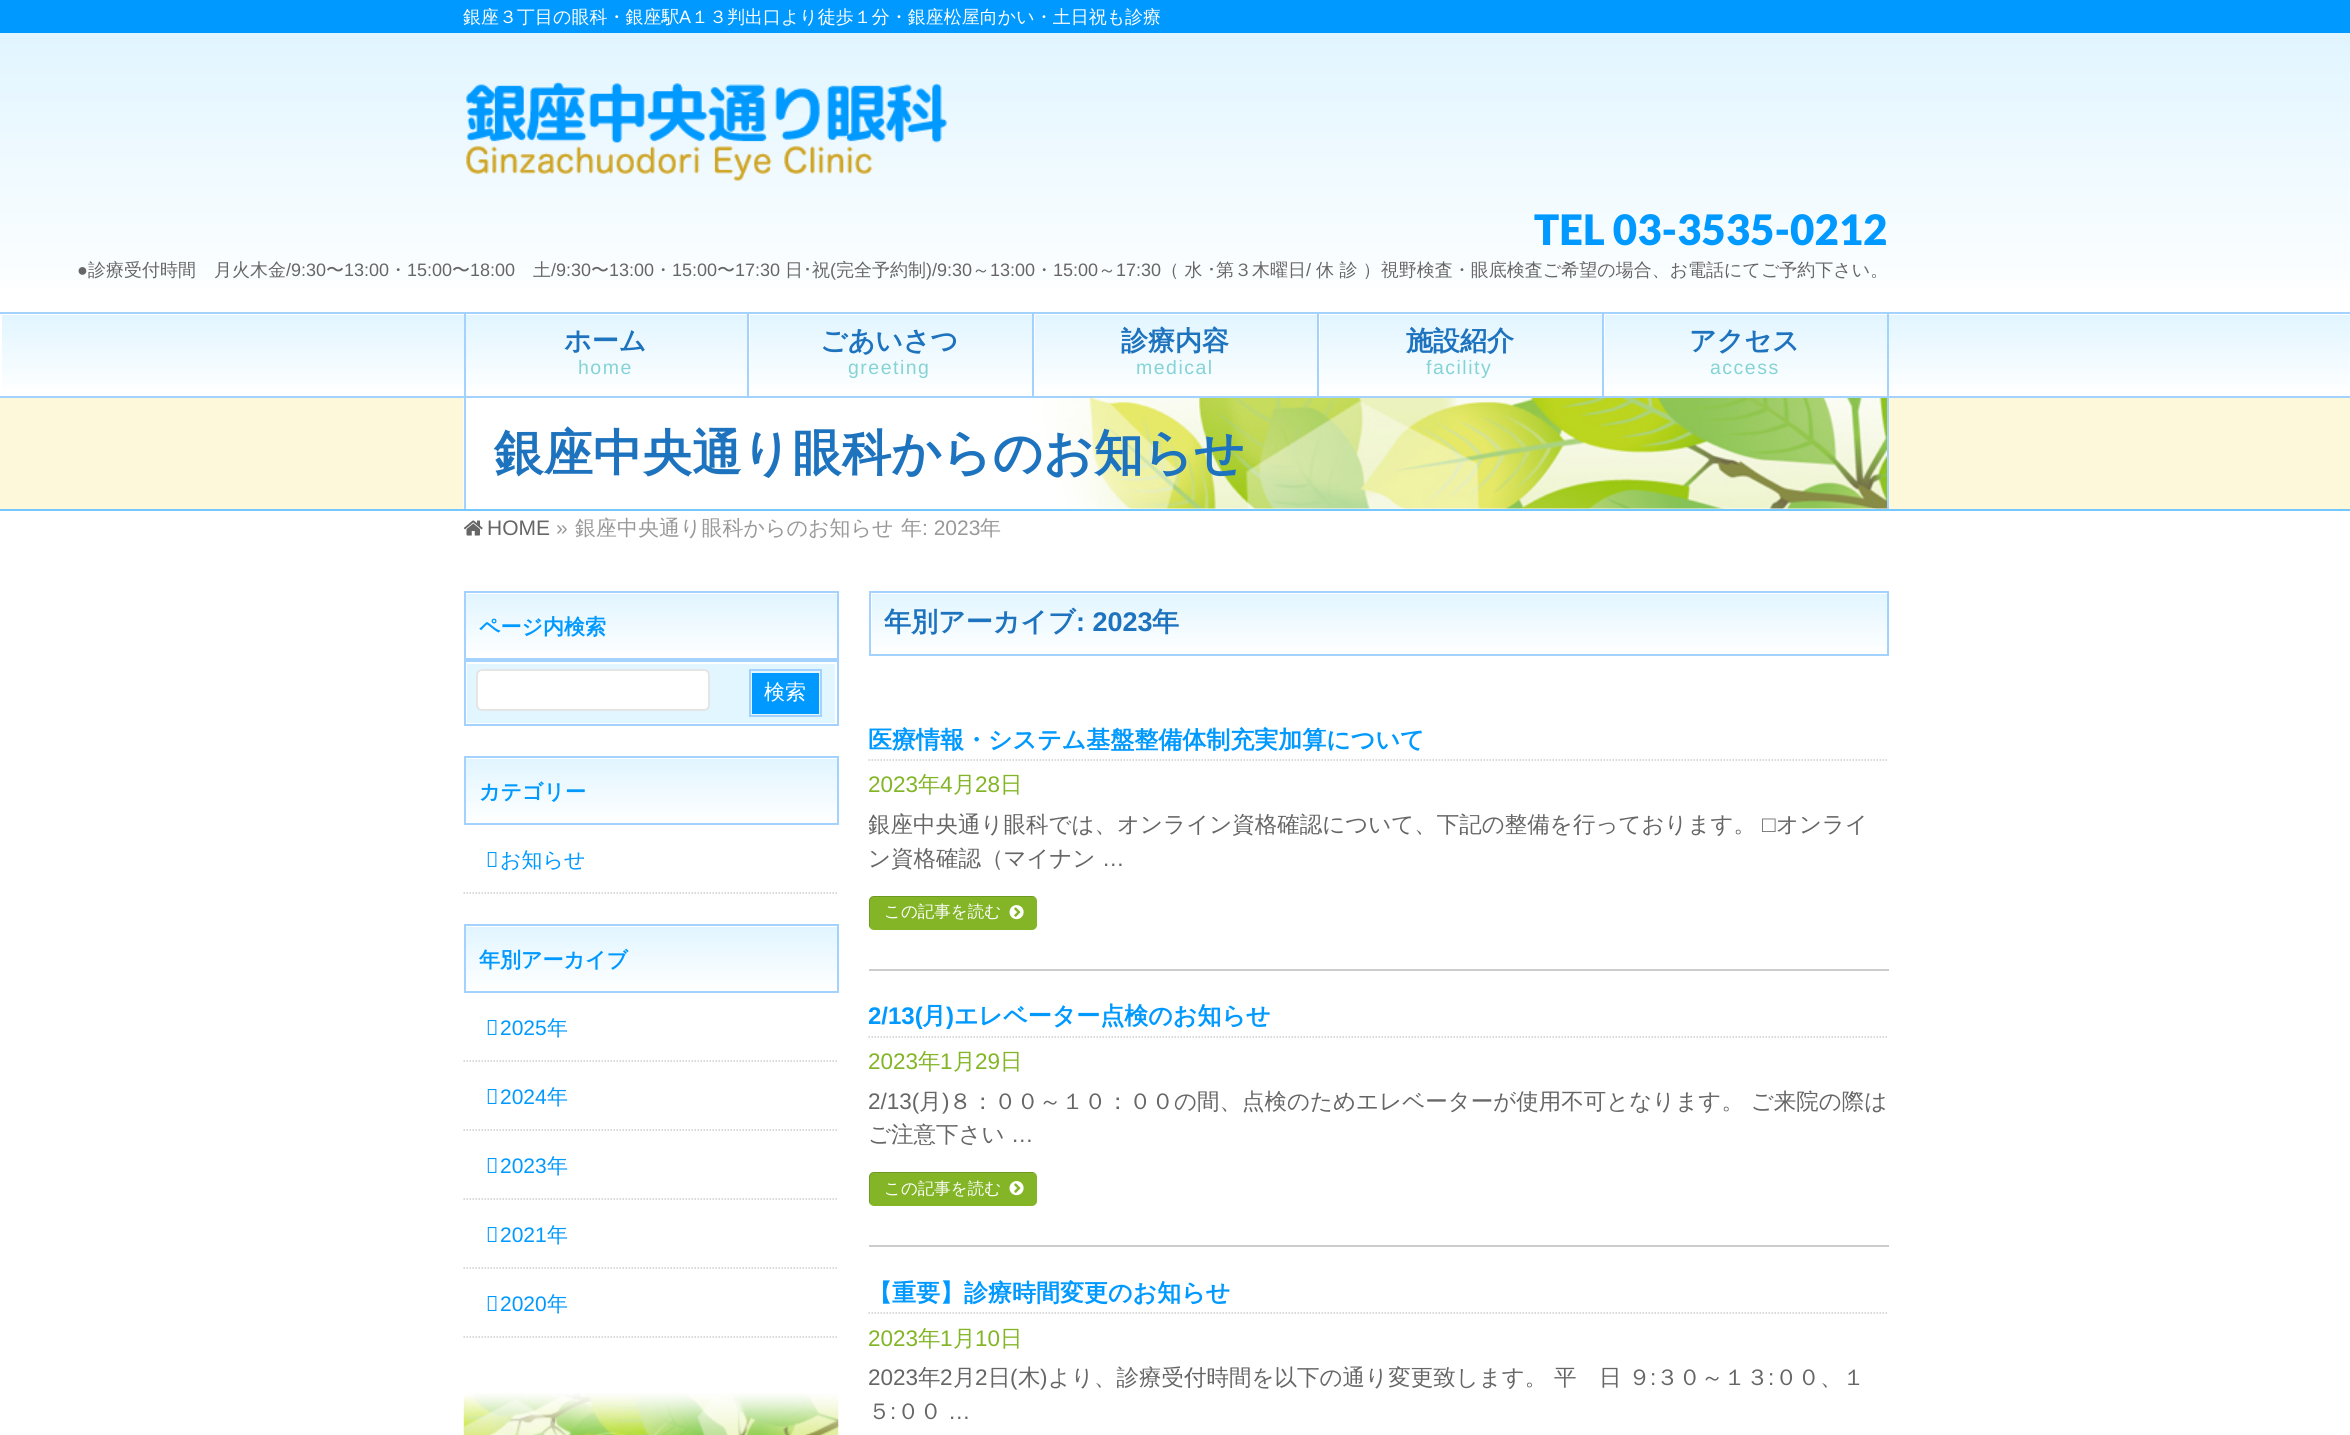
#include <cairo.h>
#include <math.h>
#include <stddef.h>


static void spaced_text(cairo_t *cr, double x, double y, const char *s, double letter, double word) {
    cairo_move_to(cr, x, y);
    while (*s) {
        char ch[5] = {0};
        int n = 0;
        do ch[n++] = *s++; while ((*s & 0xC0) == 0x80);
        cairo_show_text(cr, ch);
        cairo_rel_move_to(cr, letter + word * (*ch == ' '), 0);
    }
}

static void round_rect(cairo_t *cr, double x, double y, double w, double h, double r) {
    cairo_new_sub_path(cr);
    cairo_arc(cr, x + w - r, y + h - r, r, 0, M_PI / 2);
    cairo_arc(cr, x + r, y + h - r, r, M_PI / 2, M_PI);
    cairo_arc(cr, x + r, y + r, r, M_PI, 1.5 * M_PI);
    cairo_arc(cr, x + w - r, y + r, r, 1.5 * M_PI, 2 * M_PI);
    cairo_close_path(cr);
}

static void picture(cairo_t *cr, const char *path, double x, double y, double w, double h) {
    cairo_surface_t *image = cairo_image_surface_create_from_png(path);
    cairo_save(cr);
    cairo_set_source_surface(cr, image, x, y);
    cairo_rectangle(cr, x, y, w, h);
    cairo_fill(cr);
    cairo_restore(cr);
    cairo_surface_destroy(image);
}

int main(void) {
    cairo_surface_t *surface = cairo_image_surface_create(CAIRO_FORMAT_RGB24, 2350, 1435);
    cairo_t *cr = cairo_create(surface);
    cairo_font_options_t *options = cairo_font_options_create();
    cairo_font_options_set_hint_metrics(options, CAIRO_HINT_METRICS_OFF);
    cairo_font_options_set_hint_style(options, CAIRO_HINT_STYLE_NONE);
    cairo_set_font_options(cr, options);
    cairo_set_miter_limit(cr, 4);
    cairo_pattern_t *gradient;
    cairo_set_source_rgb(cr, 1, 1, 1);
    cairo_paint(cr);
    cairo_set_source_rgb(cr, 0, 0.6, 1);
    cairo_rectangle(cr, 0, 0, 2350, 33);
    cairo_fill(cr);
    cairo_select_font_face(cr, "WenQuanYi Zen Hei Medium", CAIRO_FONT_SLANT_NORMAL, CAIRO_FONT_WEIGHT_NORMAL);
    cairo_set_font_size(cr, 18);
    cairo_set_source_rgb(cr, 1, 1, 1);
    cairo_move_to(cr, 463, 23);
    cairo_show_text(cr, "銀座３丁目の眼科・銀座駅");
    cairo_select_font_face(cr, "Liberation Sans", CAIRO_FONT_SLANT_NORMAL, CAIRO_FONT_WEIGHT_NORMAL);
    cairo_move_to(cr, 679, 23);
    cairo_show_text(cr, "A");
    cairo_select_font_face(cr, "WenQuanYi Zen Hei Medium", CAIRO_FONT_SLANT_NORMAL, CAIRO_FONT_WEIGHT_NORMAL);
    cairo_move_to(cr, 691, 23);
    cairo_show_text(cr, "１３判出口より徒歩１分・銀座松屋向かい・土日祝も診療");
    gradient = cairo_pattern_create_linear(1175, 33, 1175, 312);
    cairo_pattern_add_color_stop_rgba(gradient, 0, 0.882, 0.961, 1, 1);
    cairo_pattern_add_color_stop_rgba(gradient, 1, 1, 1, 1, 1);
    cairo_set_source(cr, gradient);
    cairo_pattern_destroy(gradient);
    cairo_rectangle(cr, 0, 33, 2350, 256);
    cairo_fill(cr);
    picture(cr, "img1.png", 466, 81, 481, 100);
    cairo_select_font_face(cr, "Lato Black", CAIRO_FONT_SLANT_NORMAL, CAIRO_FONT_WEIGHT_NORMAL);
    cairo_set_font_size(cr, 42);
    cairo_set_source_rgb(cr, 0, 0.6, 1);
    cairo_move_to(cr, 1534, 245);
    cairo_show_text(cr, "TEL 03-3535-0212");
    cairo_select_font_face(cr, "Liberation Sans", CAIRO_FONT_SLANT_NORMAL, CAIRO_FONT_WEIGHT_NORMAL);
    cairo_set_font_size(cr, 18);
    cairo_set_source_rgb(cr, 0.4, 0.4, 0.4);
    cairo_move_to(cr, 77, 276);
    cairo_show_text(cr, "●");
    cairo_select_font_face(cr, "WenQuanYi Zen Hei Medium", CAIRO_FONT_SLANT_NORMAL, CAIRO_FONT_WEIGHT_NORMAL);
    cairo_move_to(cr, 88, 276);
    cairo_show_text(cr, "診療受付時間　月火木金");
    cairo_select_font_face(cr, "Liberation Sans", CAIRO_FONT_SLANT_NORMAL, CAIRO_FONT_WEIGHT_NORMAL);
    cairo_move_to(cr, 286, 276);
    cairo_show_text(cr, "/9:30");
    cairo_select_font_face(cr, "WenQuanYi Zen Hei Medium", CAIRO_FONT_SLANT_NORMAL, CAIRO_FONT_WEIGHT_NORMAL);
    cairo_move_to(cr, 326, 276);
    cairo_show_text(cr, "〜");
    cairo_select_font_face(cr, "Liberation Sans", CAIRO_FONT_SLANT_NORMAL, CAIRO_FONT_WEIGHT_NORMAL);
    cairo_move_to(cr, 344, 276);
    cairo_show_text(cr, "13:00");
    cairo_select_font_face(cr, "WenQuanYi Zen Hei Medium", CAIRO_FONT_SLANT_NORMAL, CAIRO_FONT_WEIGHT_NORMAL);
    cairo_move_to(cr, 389, 276);
    cairo_show_text(cr, "・");
    cairo_select_font_face(cr, "Liberation Sans", CAIRO_FONT_SLANT_NORMAL, CAIRO_FONT_WEIGHT_NORMAL);
    cairo_move_to(cr, 407, 276);
    cairo_show_text(cr, "15:00");
    cairo_select_font_face(cr, "WenQuanYi Zen Hei Medium", CAIRO_FONT_SLANT_NORMAL, CAIRO_FONT_WEIGHT_NORMAL);
    cairo_move_to(cr, 452, 276);
    cairo_show_text(cr, "〜");
    cairo_select_font_face(cr, "Liberation Sans", CAIRO_FONT_SLANT_NORMAL, CAIRO_FONT_WEIGHT_NORMAL);
    cairo_move_to(cr, 470, 276);
    cairo_show_text(cr, "18:00");
    cairo_select_font_face(cr, "WenQuanYi Zen Hei Medium", CAIRO_FONT_SLANT_NORMAL, CAIRO_FONT_WEIGHT_NORMAL);
    cairo_move_to(cr, 533, 276);
    cairo_show_text(cr, "土");
    cairo_select_font_face(cr, "Liberation Sans", CAIRO_FONT_SLANT_NORMAL, CAIRO_FONT_WEIGHT_NORMAL);
    cairo_move_to(cr, 551, 276);
    cairo_show_text(cr, "/9:30");
    cairo_select_font_face(cr, "WenQuanYi Zen Hei Medium", CAIRO_FONT_SLANT_NORMAL, CAIRO_FONT_WEIGHT_NORMAL);
    cairo_move_to(cr, 591, 276);
    cairo_show_text(cr, "〜");
    cairo_select_font_face(cr, "Liberation Sans", CAIRO_FONT_SLANT_NORMAL, CAIRO_FONT_WEIGHT_NORMAL);
    cairo_move_to(cr, 609, 276);
    cairo_show_text(cr, "13:00");
    cairo_select_font_face(cr, "WenQuanYi Zen Hei Medium", CAIRO_FONT_SLANT_NORMAL, CAIRO_FONT_WEIGHT_NORMAL);
    cairo_move_to(cr, 654, 276);
    cairo_show_text(cr, "・");
    cairo_select_font_face(cr, "Liberation Sans", CAIRO_FONT_SLANT_NORMAL, CAIRO_FONT_WEIGHT_NORMAL);
    cairo_move_to(cr, 672, 276);
    cairo_show_text(cr, "15:00");
    cairo_select_font_face(cr, "WenQuanYi Zen Hei Medium", CAIRO_FONT_SLANT_NORMAL, CAIRO_FONT_WEIGHT_NORMAL);
    cairo_move_to(cr, 717, 276);
    cairo_show_text(cr, "〜");
    cairo_select_font_face(cr, "Liberation Sans", CAIRO_FONT_SLANT_NORMAL, CAIRO_FONT_WEIGHT_NORMAL);
    cairo_move_to(cr, 735, 276);
    cairo_show_text(cr, "17:30");
    cairo_select_font_face(cr, "WenQuanYi Zen Hei Medium", CAIRO_FONT_SLANT_NORMAL, CAIRO_FONT_WEIGHT_NORMAL);
    cairo_move_to(cr, 785, 276);
    cairo_show_text(cr, "日");
    cairo_select_font_face(cr, "IPAPGothic", CAIRO_FONT_SLANT_NORMAL, CAIRO_FONT_WEIGHT_NORMAL);
    cairo_move_to(cr, 803, 276);
    cairo_show_text(cr, "･");
    cairo_select_font_face(cr, "WenQuanYi Zen Hei Medium", CAIRO_FONT_SLANT_NORMAL, CAIRO_FONT_WEIGHT_NORMAL);
    cairo_move_to(cr, 812, 276);
    cairo_show_text(cr, "祝");
    cairo_select_font_face(cr, "Liberation Sans", CAIRO_FONT_SLANT_NORMAL, CAIRO_FONT_WEIGHT_NORMAL);
    cairo_move_to(cr, 830, 276);
    cairo_show_text(cr, "(");
    cairo_select_font_face(cr, "WenQuanYi Zen Hei Medium", CAIRO_FONT_SLANT_NORMAL, CAIRO_FONT_WEIGHT_NORMAL);
    cairo_move_to(cr, 836, 276);
    cairo_show_text(cr, "完全予約制");
    cairo_select_font_face(cr, "Liberation Sans", CAIRO_FONT_SLANT_NORMAL, CAIRO_FONT_WEIGHT_NORMAL);
    cairo_move_to(cr, 926, 276);
    cairo_show_text(cr, ")/9:30");
    cairo_select_font_face(cr, "WenQuanYi Zen Hei Medium", CAIRO_FONT_SLANT_NORMAL, CAIRO_FONT_WEIGHT_NORMAL);
    cairo_move_to(cr, 972, 276);
    cairo_show_text(cr, "～");
    cairo_select_font_face(cr, "Liberation Sans", CAIRO_FONT_SLANT_NORMAL, CAIRO_FONT_WEIGHT_NORMAL);
    cairo_move_to(cr, 990, 276);
    cairo_show_text(cr, "13:00");
    cairo_select_font_face(cr, "WenQuanYi Zen Hei Medium", CAIRO_FONT_SLANT_NORMAL, CAIRO_FONT_WEIGHT_NORMAL);
    cairo_move_to(cr, 1035, 276);
    cairo_show_text(cr, "・");
    cairo_select_font_face(cr, "Liberation Sans", CAIRO_FONT_SLANT_NORMAL, CAIRO_FONT_WEIGHT_NORMAL);
    cairo_move_to(cr, 1053, 276);
    cairo_show_text(cr, "15:00");
    cairo_select_font_face(cr, "WenQuanYi Zen Hei Medium", CAIRO_FONT_SLANT_NORMAL, CAIRO_FONT_WEIGHT_NORMAL);
    cairo_move_to(cr, 1098, 276);
    cairo_show_text(cr, "～");
    cairo_select_font_face(cr, "Liberation Sans", CAIRO_FONT_SLANT_NORMAL, CAIRO_FONT_WEIGHT_NORMAL);
    cairo_move_to(cr, 1116, 276);
    cairo_show_text(cr, "17:30");
    cairo_select_font_face(cr, "WenQuanYi Zen Hei Medium", CAIRO_FONT_SLANT_NORMAL, CAIRO_FONT_WEIGHT_NORMAL);
    cairo_move_to(cr, 1161, 276);
    cairo_show_text(cr, "（ 水");
    cairo_select_font_face(cr, "IPAPGothic", CAIRO_FONT_SLANT_NORMAL, CAIRO_FONT_WEIGHT_NORMAL);
    cairo_move_to(cr, 1207, 276);
    cairo_show_text(cr, "･");
    cairo_select_font_face(cr, "WenQuanYi Zen Hei Medium", CAIRO_FONT_SLANT_NORMAL, CAIRO_FONT_WEIGHT_NORMAL);
    cairo_move_to(cr, 1216, 276);
    cairo_show_text(cr, "第３木曜日");
    cairo_select_font_face(cr, "Liberation Sans", CAIRO_FONT_SLANT_NORMAL, CAIRO_FONT_WEIGHT_NORMAL);
    cairo_move_to(cr, 1306, 276);
    cairo_show_text(cr, "/");
    cairo_select_font_face(cr, "WenQuanYi Zen Hei Medium", CAIRO_FONT_SLANT_NORMAL, CAIRO_FONT_WEIGHT_NORMAL);
    cairo_move_to(cr, 1316, 276);
    cairo_show_text(cr, "休 診 ）視野検査・眼底検査ご希望の場合、お電話にてご予約下さい。");
    gradient = cairo_pattern_create_linear(1175, 313, 1175, 396);
    cairo_pattern_add_color_stop_rgba(gradient, 0, 0.882, 0.961, 1, 1);
    cairo_pattern_add_color_stop_rgba(gradient, 1, 1, 1, 1, 1);
    cairo_set_source(cr, gradient);
    cairo_pattern_destroy(gradient);
    cairo_rectangle(cr, 2, 315, 2348, 74);
    cairo_fill(cr);
    cairo_set_source_rgb(cr, 0.639, 0.824, 1);
    cairo_rectangle(cr, 0, 312, 2350, 2);
    cairo_fill(cr);
    cairo_rectangle(cr, 0, 396, 2350, 2);
    cairo_fill(cr);
    cairo_save(cr);
    cairo_rectangle(cr, 464, 314, 285, 82);
    cairo_clip(cr);
    cairo_set_source_rgb(cr, 1, 1, 1);
    cairo_set_fill_rule(cr, CAIRO_FILL_RULE_EVEN_ODD);
    cairo_new_path(cr);
    cairo_move_to(cr, 315, 165);
    cairo_line_to(cr, 897, 165);
    cairo_line_to(cr, 897, 544);
    cairo_line_to(cr, 315, 544);
    cairo_close_path(cr);
    cairo_move_to(cr, 465, 315);
    cairo_line_to(cr, 750, 315);
    cairo_line_to(cr, 750, 398);
    cairo_line_to(cr, 465, 398);
    cairo_close_path(cr);
    cairo_fill(cr);
    cairo_restore(cr);
    cairo_rectangle(cr, 747, 314, 2, 82);
    cairo_fill(cr);
    cairo_rectangle(cr, 464, 314, 2, 82);
    cairo_fill(cr);
    cairo_select_font_face(cr, "WenQuanYi Zen Hei", CAIRO_FONT_SLANT_NORMAL, CAIRO_FONT_WEIGHT_BOLD);
    cairo_set_font_size(cr, 27);
    cairo_set_source_rgb(cr, 0.118, 0.451, 0.745);
    cairo_move_to(cr, 564, 350);
    cairo_show_text(cr, "ホーム");
    cairo_select_font_face(cr, "Liberation Sans", CAIRO_FONT_SLANT_NORMAL, CAIRO_FONT_WEIGHT_NORMAL);
    cairo_set_font_size(cr, 19.5);
    cairo_set_source_rgb(cr, 0.518, 0.827, 0.835);
    spaced_text(cr, 578, 374, "home", 1.5, 0);
    cairo_save(cr);
    cairo_rectangle(cr, 749, 314, 285, 82);
    cairo_clip(cr);
    cairo_set_source_rgb(cr, 1, 1, 1);
    cairo_set_fill_rule(cr, CAIRO_FILL_RULE_EVEN_ODD);
    cairo_new_path(cr);
    cairo_move_to(cr, 600, 165);
    cairo_line_to(cr, 1182, 165);
    cairo_line_to(cr, 1182, 544);
    cairo_line_to(cr, 600, 544);
    cairo_close_path(cr);
    cairo_move_to(cr, 750, 315);
    cairo_line_to(cr, 1035, 315);
    cairo_line_to(cr, 1035, 398);
    cairo_line_to(cr, 750, 398);
    cairo_close_path(cr);
    cairo_fill(cr);
    cairo_restore(cr);
    cairo_set_source_rgb(cr, 0.639, 0.824, 1);
    cairo_rectangle(cr, 1032, 314, 2, 82);
    cairo_fill(cr);
    cairo_select_font_face(cr, "WenQuanYi Zen Hei", CAIRO_FONT_SLANT_NORMAL, CAIRO_FONT_WEIGHT_BOLD);
    cairo_set_font_size(cr, 27);
    cairo_set_source_rgb(cr, 0.118, 0.451, 0.745);
    cairo_move_to(cr, 820, 350);
    cairo_show_text(cr, "ごあいさつ");
    cairo_select_font_face(cr, "Liberation Sans", CAIRO_FONT_SLANT_NORMAL, CAIRO_FONT_WEIGHT_NORMAL);
    cairo_set_font_size(cr, 19.5);
    cairo_set_source_rgb(cr, 0.518, 0.827, 0.835);
    spaced_text(cr, 848, 374, "greeting", 1.5, 0);
    cairo_save(cr);
    cairo_rectangle(cr, 1034, 314, 285, 82);
    cairo_clip(cr);
    cairo_set_source_rgb(cr, 1, 1, 1);
    cairo_set_fill_rule(cr, CAIRO_FILL_RULE_EVEN_ODD);
    cairo_new_path(cr);
    cairo_move_to(cr, 885, 165);
    cairo_line_to(cr, 1467, 165);
    cairo_line_to(cr, 1467, 544);
    cairo_line_to(cr, 885, 544);
    cairo_close_path(cr);
    cairo_move_to(cr, 1035, 315);
    cairo_line_to(cr, 1320, 315);
    cairo_line_to(cr, 1320, 398);
    cairo_line_to(cr, 1035, 398);
    cairo_close_path(cr);
    cairo_fill(cr);
    cairo_restore(cr);
    cairo_set_source_rgb(cr, 0.639, 0.824, 1);
    cairo_rectangle(cr, 1317, 314, 2, 82);
    cairo_fill(cr);
    cairo_select_font_face(cr, "WenQuanYi Zen Hei", CAIRO_FONT_SLANT_NORMAL, CAIRO_FONT_WEIGHT_BOLD);
    cairo_set_font_size(cr, 27);
    cairo_set_source_rgb(cr, 0.118, 0.451, 0.745);
    cairo_move_to(cr, 1121, 350);
    cairo_show_text(cr, "診療内容");
    cairo_select_font_face(cr, "Liberation Sans", CAIRO_FONT_SLANT_NORMAL, CAIRO_FONT_WEIGHT_NORMAL);
    cairo_set_font_size(cr, 19.5);
    cairo_set_source_rgb(cr, 0.518, 0.827, 0.835);
    spaced_text(cr, 1136, 374, "medical", 1.5, 0);
    cairo_save(cr);
    cairo_rectangle(cr, 1319, 314, 285, 82);
    cairo_clip(cr);
    cairo_set_source_rgb(cr, 1, 1, 1);
    cairo_set_fill_rule(cr, CAIRO_FILL_RULE_EVEN_ODD);
    cairo_new_path(cr);
    cairo_move_to(cr, 1170, 165);
    cairo_line_to(cr, 1752, 165);
    cairo_line_to(cr, 1752, 544);
    cairo_line_to(cr, 1170, 544);
    cairo_close_path(cr);
    cairo_move_to(cr, 1320, 315);
    cairo_line_to(cr, 1605, 315);
    cairo_line_to(cr, 1605, 398);
    cairo_line_to(cr, 1320, 398);
    cairo_close_path(cr);
    cairo_fill(cr);
    cairo_restore(cr);
    cairo_set_source_rgb(cr, 0.639, 0.824, 1);
    cairo_rectangle(cr, 1602, 314, 2, 82);
    cairo_fill(cr);
    cairo_select_font_face(cr, "WenQuanYi Zen Hei", CAIRO_FONT_SLANT_NORMAL, CAIRO_FONT_WEIGHT_BOLD);
    cairo_set_font_size(cr, 27);
    cairo_set_source_rgb(cr, 0.118, 0.451, 0.745);
    cairo_move_to(cr, 1406, 350);
    cairo_show_text(cr, "施設紹介");
    cairo_select_font_face(cr, "Liberation Sans", CAIRO_FONT_SLANT_NORMAL, CAIRO_FONT_WEIGHT_NORMAL);
    cairo_set_font_size(cr, 19.5);
    cairo_set_source_rgb(cr, 0.518, 0.827, 0.835);
    spaced_text(cr, 1426, 374, "facility", 1.5, 0);
    cairo_save(cr);
    cairo_rectangle(cr, 1604, 314, 285, 82);
    cairo_clip(cr);
    cairo_set_source_rgb(cr, 1, 1, 1);
    cairo_set_fill_rule(cr, CAIRO_FILL_RULE_EVEN_ODD);
    cairo_new_path(cr);
    cairo_move_to(cr, 1455, 165);
    cairo_line_to(cr, 2037, 165);
    cairo_line_to(cr, 2037, 544);
    cairo_line_to(cr, 1455, 544);
    cairo_close_path(cr);
    cairo_move_to(cr, 1605, 315);
    cairo_line_to(cr, 1890, 315);
    cairo_line_to(cr, 1890, 398);
    cairo_line_to(cr, 1605, 398);
    cairo_close_path(cr);
    cairo_fill(cr);
    cairo_restore(cr);
    cairo_set_source_rgb(cr, 0.639, 0.824, 1);
    cairo_rectangle(cr, 1887, 314, 2, 82);
    cairo_fill(cr);
    cairo_select_font_face(cr, "WenQuanYi Zen Hei", CAIRO_FONT_SLANT_NORMAL, CAIRO_FONT_WEIGHT_BOLD);
    cairo_set_font_size(cr, 27);
    cairo_set_source_rgb(cr, 0.118, 0.451, 0.745);
    cairo_move_to(cr, 1689, 350);
    cairo_show_text(cr, "アクセス");
    cairo_select_font_face(cr, "Liberation Sans", CAIRO_FONT_SLANT_NORMAL, CAIRO_FONT_WEIGHT_NORMAL);
    cairo_set_font_size(cr, 19.5);
    cairo_set_source_rgb(cr, 0.518, 0.827, 0.835);
    spaced_text(cr, 1710, 374, "access", 1.5, 0);
    cairo_set_source_rgb(cr, 0.996, 0.969, 0.859);
    cairo_rectangle(cr, 0, 398, 2350, 111);
    cairo_fill(cr);
    cairo_set_source_rgb(cr, 0.459, 0.78, 1);
    cairo_rectangle(cr, 0, 509, 2350, 2);
    cairo_fill(cr);
    cairo_set_source_rgb(cr, 1, 1, 1);
    cairo_rectangle(cr, 466, 508, 1421, 1);
    cairo_fill(cr);
    picture(cr, "img2.png", 463, 398, 1424, 111);
    cairo_set_source_rgb(cr, 0.639, 0.824, 1);
    cairo_rectangle(cr, 1887, 398, 2, 111);
    cairo_fill(cr);
    cairo_rectangle(cr, 464, 398, 2, 111);
    cairo_fill(cr);
    cairo_select_font_face(cr, "WenQuanYi Zen Hei", CAIRO_FONT_SLANT_NORMAL, CAIRO_FONT_WEIGHT_BOLD);
    cairo_set_font_size(cr, 49.5);
    cairo_set_source_rgb(cr, 0.118, 0.451, 0.745);
    cairo_move_to(cr, 494, 470);
    cairo_show_text(cr, "銀座中央通り眼科からのお知らせ");
    picture(cr, "img3.png", 464, 520, 19, 16);
    cairo_select_font_face(cr, "Liberation Sans", CAIRO_FONT_SLANT_NORMAL, CAIRO_FONT_WEIGHT_NORMAL);
    cairo_set_font_size(cr, 21);
    cairo_set_source_rgb(cr, 0.4, 0.4, 0.4);
    cairo_move_to(cr, 487, 535);
    cairo_show_text(cr, "HOME");
    cairo_set_source_rgb(cr, 0.6, 0.6, 0.6);
    cairo_move_to(cr, 556, 535);
    cairo_show_text(cr, "»");
    cairo_select_font_face(cr, "WenQuanYi Zen Hei Medium", CAIRO_FONT_SLANT_NORMAL, CAIRO_FONT_WEIGHT_NORMAL);
    cairo_move_to(cr, 575, 535);
    cairo_show_text(cr, "銀座中央通り眼科からのお知らせ");
    cairo_move_to(cr, 901, 535);
    cairo_show_text(cr, "年");
    cairo_select_font_face(cr, "Liberation Sans", CAIRO_FONT_SLANT_NORMAL, CAIRO_FONT_WEIGHT_NORMAL);
    cairo_move_to(cr, 922, 535);
    cairo_show_text(cr, ": 2023");
    cairo_select_font_face(cr, "WenQuanYi Zen Hei Medium", CAIRO_FONT_SLANT_NORMAL, CAIRO_FONT_WEIGHT_NORMAL);
    cairo_move_to(cr, 980, 535);
    cairo_show_text(cr, "年");
    gradient = cairo_pattern_create_linear(651, 593, 651, 659);
    cairo_pattern_add_color_stop_rgba(gradient, 0, 0.882, 0.961, 1, 1);
    cairo_pattern_add_color_stop_rgba(gradient, 1, 1, 1, 1, 1);
    cairo_set_source(cr, gradient);
    cairo_pattern_destroy(gradient);
    cairo_rectangle(cr, 466, 594, 371, 60);
    cairo_fill(cr);
    cairo_rectangle(cr, 465, 592, 373, 67);
    cairo_set_source_rgb(cr, 0.639, 0.824, 1);
    cairo_stroke(cr);
    cairo_select_font_face(cr, "WenQuanYi Zen Hei", CAIRO_FONT_SLANT_NORMAL, CAIRO_FONT_WEIGHT_BOLD);
    cairo_set_source_rgb(cr, 0, 0.6, 1);
    cairo_move_to(cr, 479, 634);
    cairo_show_text(cr, "ページ内検索");
    cairo_set_source_rgb(cr, 0.882, 0.961, 1);
    cairo_rectangle(cr, 466, 663, 370, 61);
    cairo_fill_preserve(cr);
    cairo_set_source_rgb(cr, 0.988, 0.996, 1);
    cairo_stroke(cr);
    cairo_rectangle(cr, 465, 661, 373, 64);
    cairo_set_source_rgb(cr, 0.639, 0.824, 1);
    cairo_stroke(cr);
    cairo_set_source_rgb(cr, 1, 1, 1);
    round_rect(cr, 477, 670, 232, 40, 5);
    cairo_fill_preserve(cr);
    cairo_set_source_rgb(cr, 0.898, 0.898, 0.898);
    cairo_stroke(cr);
    cairo_set_source_rgb(cr, 0, 0.6, 1);
    cairo_rectangle(cr, 751, 672, 69, 43);
    cairo_fill_preserve(cr);
    cairo_set_source_rgb(cr, 0.902, 0.961, 1);
    cairo_stroke(cr);
    cairo_rectangle(cr, 750, 670, 71, 46);
    cairo_set_source_rgb(cr, 0.639, 0.824, 1);
    cairo_stroke(cr);
    cairo_select_font_face(cr, "WenQuanYi Zen Hei Medium", CAIRO_FONT_SLANT_NORMAL, CAIRO_FONT_WEIGHT_NORMAL);
    cairo_set_source_rgb(cr, 1, 1, 1);
    cairo_move_to(cr, 764, 699);
    cairo_show_text(cr, "検索");
    gradient = cairo_pattern_create_linear(651, 758, 651, 824);
    cairo_pattern_add_color_stop_rgba(gradient, 0, 0.882, 0.961, 1, 1);
    cairo_pattern_add_color_stop_rgba(gradient, 1, 1, 1, 1, 1);
    cairo_set_source(cr, gradient);
    cairo_pattern_destroy(gradient);
    cairo_rectangle(cr, 466, 759, 371, 60);
    cairo_fill(cr);
    cairo_rectangle(cr, 465, 757, 373, 67);
    cairo_set_source_rgb(cr, 0.639, 0.824, 1);
    cairo_stroke(cr);
    cairo_select_font_face(cr, "WenQuanYi Zen Hei", CAIRO_FONT_SLANT_NORMAL, CAIRO_FONT_WEIGHT_BOLD);
    cairo_set_source_rgb(cr, 0, 0.6, 1);
    cairo_move_to(cr, 479, 799);
    cairo_show_text(cr, "カテゴリー");
    cairo_new_path(cr);
    cairo_move_to(cr, 463.5, 893);
    cairo_line_to(cr, 838.5, 893);
    cairo_set_source_rgb(cr, 0.8, 0.8, 0.8);
    cairo_set_line_width(cr, 1.5);
    cairo_set_dash(cr, (double[]){1.5, 1.5}, 2, 0);
    cairo_stroke(cr);
    picture(cr, "img4.png", 487, 852, 10, 15);
    cairo_select_font_face(cr, "WenQuanYi Zen Hei Medium", CAIRO_FONT_SLANT_NORMAL, CAIRO_FONT_WEIGHT_NORMAL);
    cairo_set_source_rgb(cr, 0, 0.6, 1);
    cairo_move_to(cr, 500, 867);
    cairo_show_text(cr, "お知らせ");
    gradient = cairo_pattern_create_linear(651, 926, 651, 992);
    cairo_pattern_add_color_stop_rgba(gradient, 0, 0.882, 0.961, 1, 1);
    cairo_pattern_add_color_stop_rgba(gradient, 1, 1, 1, 1, 1);
    cairo_set_source(cr, gradient);
    cairo_pattern_destroy(gradient);
    cairo_rectangle(cr, 466, 927, 371, 60);
    cairo_fill(cr);
    cairo_rectangle(cr, 465, 925, 373, 67);
    cairo_set_source_rgb(cr, 0.639, 0.824, 1);
    cairo_set_line_width(cr, 2);
    cairo_set_dash(cr, NULL, 0, 0);
    cairo_stroke(cr);
    cairo_select_font_face(cr, "WenQuanYi Zen Hei", CAIRO_FONT_SLANT_NORMAL, CAIRO_FONT_WEIGHT_BOLD);
    cairo_set_source_rgb(cr, 0, 0.6, 1);
    cairo_move_to(cr, 479, 967);
    cairo_show_text(cr, "年別アーカイブ");
    cairo_new_path(cr);
    cairo_move_to(cr, 463.5, 1061);
    cairo_line_to(cr, 838.5, 1061);
    cairo_set_source_rgb(cr, 0.8, 0.8, 0.8);
    cairo_set_line_width(cr, 1.5);
    cairo_set_dash(cr, (double[]){1.5, 1.5}, 2, 0);
    cairo_stroke(cr);
    picture(cr, "img4.png", 487, 1020, 10, 15);
    cairo_select_font_face(cr, "Liberation Sans", CAIRO_FONT_SLANT_NORMAL, CAIRO_FONT_WEIGHT_NORMAL);
    cairo_set_source_rgb(cr, 0, 0.6, 1);
    cairo_move_to(cr, 500, 1035);
    cairo_show_text(cr, "2025");
    cairo_select_font_face(cr, "WenQuanYi Zen Hei Medium", CAIRO_FONT_SLANT_NORMAL, CAIRO_FONT_WEIGHT_NORMAL);
    cairo_move_to(cr, 547, 1035);
    cairo_show_text(cr, "年");
    cairo_new_path(cr);
    cairo_move_to(cr, 463.5, 1130);
    cairo_line_to(cr, 838.5, 1130);
    cairo_set_source_rgb(cr, 0.8, 0.8, 0.8);
    cairo_stroke(cr);
    picture(cr, "img4.png", 487, 1089, 10, 15);
    cairo_select_font_face(cr, "Liberation Sans", CAIRO_FONT_SLANT_NORMAL, CAIRO_FONT_WEIGHT_NORMAL);
    cairo_set_source_rgb(cr, 0, 0.6, 1);
    cairo_move_to(cr, 500, 1104);
    cairo_show_text(cr, "2024");
    cairo_select_font_face(cr, "WenQuanYi Zen Hei Medium", CAIRO_FONT_SLANT_NORMAL, CAIRO_FONT_WEIGHT_NORMAL);
    cairo_move_to(cr, 547, 1104);
    cairo_show_text(cr, "年");
    cairo_new_path(cr);
    cairo_move_to(cr, 463.5, 1199);
    cairo_line_to(cr, 838.5, 1199);
    cairo_set_source_rgb(cr, 0.8, 0.8, 0.8);
    cairo_stroke(cr);
    picture(cr, "img4.png", 487, 1158, 10, 15);
    cairo_select_font_face(cr, "Liberation Sans", CAIRO_FONT_SLANT_NORMAL, CAIRO_FONT_WEIGHT_NORMAL);
    cairo_set_source_rgb(cr, 0, 0.6, 1);
    cairo_move_to(cr, 500, 1173);
    cairo_show_text(cr, "2023");
    cairo_select_font_face(cr, "WenQuanYi Zen Hei Medium", CAIRO_FONT_SLANT_NORMAL, CAIRO_FONT_WEIGHT_NORMAL);
    cairo_move_to(cr, 547, 1173);
    cairo_show_text(cr, "年");
    cairo_new_path(cr);
    cairo_move_to(cr, 463.5, 1268);
    cairo_line_to(cr, 838.5, 1268);
    cairo_set_source_rgb(cr, 0.8, 0.8, 0.8);
    cairo_stroke(cr);
    picture(cr, "img4.png", 487, 1227, 10, 15);
    cairo_select_font_face(cr, "Liberation Sans", CAIRO_FONT_SLANT_NORMAL, CAIRO_FONT_WEIGHT_NORMAL);
    cairo_set_source_rgb(cr, 0, 0.6, 1);
    cairo_move_to(cr, 500, 1242);
    cairo_show_text(cr, "2021");
    cairo_select_font_face(cr, "WenQuanYi Zen Hei Medium", CAIRO_FONT_SLANT_NORMAL, CAIRO_FONT_WEIGHT_NORMAL);
    cairo_move_to(cr, 547, 1242);
    cairo_show_text(cr, "年");
    cairo_new_path(cr);
    cairo_move_to(cr, 463.5, 1337);
    cairo_line_to(cr, 838.5, 1337);
    cairo_set_source_rgb(cr, 0.8, 0.8, 0.8);
    cairo_stroke(cr);
    picture(cr, "img4.png", 487, 1296, 10, 15);
    cairo_select_font_face(cr, "Liberation Sans", CAIRO_FONT_SLANT_NORMAL, CAIRO_FONT_WEIGHT_NORMAL);
    cairo_set_source_rgb(cr, 0, 0.6, 1);
    cairo_move_to(cr, 500, 1311);
    cairo_show_text(cr, "2020");
    cairo_select_font_face(cr, "WenQuanYi Zen Hei Medium", CAIRO_FONT_SLANT_NORMAL, CAIRO_FONT_WEIGHT_NORMAL);
    cairo_move_to(cr, 547, 1311);
    cairo_show_text(cr, "年");
    picture(cr, "img5.png", 463, 1393, 376, 42);
    gradient = cairo_pattern_create_linear(1379, 592, 1379, 654);
    cairo_pattern_add_color_stop_rgba(gradient, 0, 0.882, 0.961, 1, 1);
    cairo_pattern_add_color_stop_rgba(gradient, 1, 1, 1, 1, 1);
    cairo_set_source(cr, gradient);
    cairo_pattern_destroy(gradient);
    cairo_rectangle(cr, 872, 594, 1015, 55);
    cairo_fill(cr);
    cairo_rectangle(cr, 870, 592, 1018, 63);
    cairo_set_source_rgb(cr, 0.639, 0.824, 1);
    cairo_set_line_width(cr, 2);
    cairo_set_dash(cr, NULL, 0, 0);
    cairo_stroke(cr);
    cairo_select_font_face(cr, "WenQuanYi Zen Hei", CAIRO_FONT_SLANT_NORMAL, CAIRO_FONT_WEIGHT_BOLD);
    cairo_set_font_size(cr, 27);
    cairo_set_source_rgb(cr, 0.118, 0.451, 0.745);
    cairo_move_to(cr, 884, 631);
    cairo_show_text(cr, "年別アーカイブ");
    cairo_select_font_face(cr, "Liberation Sans", CAIRO_FONT_SLANT_NORMAL, CAIRO_FONT_WEIGHT_BOLD);
    cairo_move_to(cr, 1076, 631);
    cairo_show_text(cr, ": 2023");
    cairo_select_font_face(cr, "WenQuanYi Zen Hei", CAIRO_FONT_SLANT_NORMAL, CAIRO_FONT_WEIGHT_BOLD);
    cairo_move_to(cr, 1152, 631);
    cairo_show_text(cr, "年");
    cairo_set_source_rgb(cr, 0.8, 0.8, 0.8);
    cairo_rectangle(cr, 869, 969, 1020, 2);
    cairo_fill(cr);
    cairo_new_path(cr);
    cairo_move_to(cr, 868.5, 760);
    cairo_line_to(cr, 1888.5, 760);
    cairo_set_line_width(cr, 1.5);
    cairo_set_dash(cr, (double[]){1.5, 1.5}, 2, 0);
    cairo_stroke(cr);
    cairo_set_font_size(cr, 24);
    cairo_set_source_rgb(cr, 0, 0.6, 1);
    cairo_move_to(cr, 868, 748);
    cairo_show_text(cr, "医療情報・システム基盤整備体制充実加算について");
    cairo_select_font_face(cr, "Liberation Sans", CAIRO_FONT_SLANT_NORMAL, CAIRO_FONT_WEIGHT_NORMAL);
    cairo_set_font_size(cr, 22.5);
    cairo_set_source_rgb(cr, 0.514, 0.71, 0.153);
    cairo_move_to(cr, 868, 792);
    cairo_show_text(cr, "2023");
    cairo_select_font_face(cr, "WenQuanYi Zen Hei Medium", CAIRO_FONT_SLANT_NORMAL, CAIRO_FONT_WEIGHT_NORMAL);
    cairo_move_to(cr, 918, 792);
    cairo_show_text(cr, "年");
    cairo_select_font_face(cr, "Liberation Sans", CAIRO_FONT_SLANT_NORMAL, CAIRO_FONT_WEIGHT_NORMAL);
    cairo_move_to(cr, 940, 792);
    cairo_show_text(cr, "4");
    cairo_select_font_face(cr, "WenQuanYi Zen Hei Medium", CAIRO_FONT_SLANT_NORMAL, CAIRO_FONT_WEIGHT_NORMAL);
    cairo_move_to(cr, 953, 792);
    cairo_show_text(cr, "月");
    cairo_select_font_face(cr, "Liberation Sans", CAIRO_FONT_SLANT_NORMAL, CAIRO_FONT_WEIGHT_NORMAL);
    cairo_move_to(cr, 975, 792);
    cairo_show_text(cr, "28");
    cairo_select_font_face(cr, "WenQuanYi Zen Hei Medium", CAIRO_FONT_SLANT_NORMAL, CAIRO_FONT_WEIGHT_NORMAL);
    cairo_move_to(cr, 1000, 792);
    cairo_show_text(cr, "日");
    cairo_save(cr);
    cairo_rectangle(cr, 869, 723, 1020, 216);
    cairo_clip(cr);
    cairo_set_source_rgb(cr, 0.4, 0.4, 0.4);
    cairo_move_to(cr, 868, 832);
    cairo_show_text(cr, "銀座中央通り眼科では、オンライン資格確認について、下記の整備を行っております。");
    cairo_restore(cr);
    cairo_select_font_face(cr, "Liberation Sans", CAIRO_FONT_SLANT_NORMAL, CAIRO_FONT_WEIGHT_NORMAL);
    cairo_set_source_rgb(cr, 0.4, 0.4, 0.4);
    cairo_move_to(cr, 1762, 832);
    cairo_show_text(cr, "□");
    cairo_select_font_face(cr, "WenQuanYi Zen Hei Medium", CAIRO_FONT_SLANT_NORMAL, CAIRO_FONT_WEIGHT_NORMAL);
    cairo_move_to(cr, 1776, 832);
    cairo_show_text(cr, "オンライ");
    cairo_move_to(cr, 868, 866);
    cairo_show_text(cr, "ン資格確認（マイナン");
    cairo_select_font_face(cr, "Liberation Sans", CAIRO_FONT_SLANT_NORMAL, CAIRO_FONT_WEIGHT_NORMAL);
    cairo_move_to(cr, 1102, 866);
    cairo_show_text(cr, "…");
    cairo_set_source_rgb(cr, 0.514, 0.71, 0.153);
    round_rect(cr, 869, 896, 168, 34, 5);
    cairo_fill(cr);
    cairo_set_source_rgba(cr, 0, 0, 0, 0.15);
    cairo_new_path(cr);
    cairo_move_to(cr, 874, 897);
    cairo_line_to(cr, 1035, 897);
    cairo_curve_to(cr, 1034, 896, 1033, 896, 1032, 896);
    cairo_line_to(cr, 874, 896);
    cairo_curve_to(cr, 871, 896, 869, 898, 869, 901);
    cairo_line_to(cr, 869, 925);
    cairo_curve_to(cr, 869, 926, 869, 927, 870, 928);
    cairo_line_to(cr, 870, 906);
    cairo_curve_to(cr, 870, 903, 869, 897, 874, 897);
    cairo_close_path(cr);
    cairo_fill(cr);
    cairo_select_font_face(cr, "WenQuanYi Zen Hei Medium", CAIRO_FONT_SLANT_NORMAL, CAIRO_FONT_WEIGHT_NORMAL);
    cairo_set_font_size(cr, 16.5);
    cairo_set_source_rgb(cr, 1, 1, 1);
    cairo_move_to(cr, 884, 917);
    cairo_show_text(cr, "この記事を読む");
    picture(cr, "img6.png", 1009, 905, 15, 15);
    cairo_set_source_rgb(cr, 0.8, 0.8, 0.8);
    cairo_rectangle(cr, 869, 1245, 1020, 2);
    cairo_fill(cr);
    cairo_new_path(cr);
    cairo_move_to(cr, 868.5, 1037);
    cairo_line_to(cr, 1888.5, 1037);
    cairo_stroke(cr);
    cairo_save(cr);
    cairo_rectangle(cr, 869, 1001, 1020, 214);
    cairo_clip(cr);
    cairo_select_font_face(cr, "Liberation Sans", CAIRO_FONT_SLANT_NORMAL, CAIRO_FONT_WEIGHT_BOLD);
    cairo_set_font_size(cr, 24);
    cairo_set_source_rgb(cr, 0, 0.6, 1);
    cairo_move_to(cr, 868, 1024);
    cairo_show_text(cr, "2/13(");
    cairo_restore(cr);
    cairo_select_font_face(cr, "WenQuanYi Zen Hei", CAIRO_FONT_SLANT_NORMAL, CAIRO_FONT_WEIGHT_BOLD);
    cairo_set_font_size(cr, 24);
    cairo_set_source_rgb(cr, 0, 0.6, 1);
    cairo_move_to(cr, 922, 1024);
    cairo_show_text(cr, "月");
    cairo_select_font_face(cr, "Liberation Sans", CAIRO_FONT_SLANT_NORMAL, CAIRO_FONT_WEIGHT_BOLD);
    cairo_move_to(cr, 946, 1024);
    cairo_show_text(cr, ")");
    cairo_select_font_face(cr, "WenQuanYi Zen Hei", CAIRO_FONT_SLANT_NORMAL, CAIRO_FONT_WEIGHT_BOLD);
    cairo_move_to(cr, 954, 1024);
    cairo_show_text(cr, "エレベーター点検のお知らせ");
    cairo_select_font_face(cr, "Liberation Sans", CAIRO_FONT_SLANT_NORMAL, CAIRO_FONT_WEIGHT_NORMAL);
    cairo_set_font_size(cr, 22.5);
    cairo_set_source_rgb(cr, 0.514, 0.71, 0.153);
    cairo_move_to(cr, 868, 1069);
    cairo_show_text(cr, "2023");
    cairo_select_font_face(cr, "WenQuanYi Zen Hei Medium", CAIRO_FONT_SLANT_NORMAL, CAIRO_FONT_WEIGHT_NORMAL);
    cairo_move_to(cr, 918, 1069);
    cairo_show_text(cr, "年");
    cairo_select_font_face(cr, "Liberation Sans", CAIRO_FONT_SLANT_NORMAL, CAIRO_FONT_WEIGHT_NORMAL);
    cairo_move_to(cr, 940, 1069);
    cairo_show_text(cr, "1");
    cairo_select_font_face(cr, "WenQuanYi Zen Hei Medium", CAIRO_FONT_SLANT_NORMAL, CAIRO_FONT_WEIGHT_NORMAL);
    cairo_move_to(cr, 953, 1069);
    cairo_show_text(cr, "月");
    cairo_select_font_face(cr, "Liberation Sans", CAIRO_FONT_SLANT_NORMAL, CAIRO_FONT_WEIGHT_NORMAL);
    cairo_move_to(cr, 975, 1069);
    cairo_show_text(cr, "29");
    cairo_select_font_face(cr, "WenQuanYi Zen Hei Medium", CAIRO_FONT_SLANT_NORMAL, CAIRO_FONT_WEIGHT_NORMAL);
    cairo_move_to(cr, 1000, 1069);
    cairo_show_text(cr, "日");
    cairo_select_font_face(cr, "Liberation Sans", CAIRO_FONT_SLANT_NORMAL, CAIRO_FONT_WEIGHT_NORMAL);
    cairo_set_source_rgb(cr, 0.4, 0.4, 0.4);
    cairo_move_to(cr, 868, 1109);
    cairo_show_text(cr, "2/13(");
    cairo_select_font_face(cr, "WenQuanYi Zen Hei Medium", CAIRO_FONT_SLANT_NORMAL, CAIRO_FONT_WEIGHT_NORMAL);
    cairo_move_to(cr, 919, 1109);
    cairo_show_text(cr, "月");
    cairo_select_font_face(cr, "Liberation Sans", CAIRO_FONT_SLANT_NORMAL, CAIRO_FONT_WEIGHT_NORMAL);
    cairo_move_to(cr, 942, 1109);
    cairo_show_text(cr, ")");
    cairo_select_font_face(cr, "WenQuanYi Zen Hei Medium", CAIRO_FONT_SLANT_NORMAL, CAIRO_FONT_WEIGHT_NORMAL);
    cairo_move_to(cr, 949, 1109);
    cairo_show_text(cr, "８：００～１０：００の間、点検のためエレベーターが使用不可となります。 ご来院の際は");
    cairo_move_to(cr, 868, 1142);
    cairo_show_text(cr, "ご注意下さい");
    cairo_select_font_face(cr, "Liberation Sans", CAIRO_FONT_SLANT_NORMAL, CAIRO_FONT_WEIGHT_NORMAL);
    cairo_move_to(cr, 1011, 1142);
    cairo_show_text(cr, "…");
    cairo_set_source_rgb(cr, 0.514, 0.71, 0.153);
    round_rect(cr, 869, 1172, 168, 34, 5);
    cairo_fill(cr);
    cairo_set_source_rgba(cr, 0, 0, 0, 0.15);
    cairo_new_path(cr);
    cairo_move_to(cr, 874, 1173);
    cairo_line_to(cr, 1035, 1173);
    cairo_curve_to(cr, 1034, 1172, 1033, 1172, 1032, 1172);
    cairo_line_to(cr, 874, 1172);
    cairo_curve_to(cr, 871, 1172, 869, 1174, 869, 1177);
    cairo_line_to(cr, 869, 1201);
    cairo_curve_to(cr, 869, 1202, 869, 1203, 870, 1204);
    cairo_line_to(cr, 870, 1182);
    cairo_curve_to(cr, 870, 1179, 869, 1173, 874, 1173);
    cairo_close_path(cr);
    cairo_fill(cr);
    cairo_select_font_face(cr, "WenQuanYi Zen Hei Medium", CAIRO_FONT_SLANT_NORMAL, CAIRO_FONT_WEIGHT_NORMAL);
    cairo_set_font_size(cr, 16.5);
    cairo_set_source_rgb(cr, 1, 1, 1);
    cairo_move_to(cr, 884, 1194);
    cairo_show_text(cr, "この記事を読む");
    picture(cr, "img6.png", 1009, 1181, 15, 15);
    cairo_new_path(cr);
    cairo_move_to(cr, 868.5, 1313);
    cairo_line_to(cr, 1888.5, 1313);
    cairo_set_source_rgb(cr, 0.8, 0.8, 0.8);
    cairo_stroke(cr);
    cairo_select_font_face(cr, "WenQuanYi Zen Hei", CAIRO_FONT_SLANT_NORMAL, CAIRO_FONT_WEIGHT_BOLD);
    cairo_set_font_size(cr, 24);
    cairo_set_source_rgb(cr, 0, 0.6, 1);
    cairo_move_to(cr, 868, 1301);
    cairo_show_text(cr, "【重要】診療時間変更のお知らせ");
    cairo_select_font_face(cr, "Liberation Sans", CAIRO_FONT_SLANT_NORMAL, CAIRO_FONT_WEIGHT_NORMAL);
    cairo_set_font_size(cr, 22.5);
    cairo_set_source_rgb(cr, 0.514, 0.71, 0.153);
    cairo_move_to(cr, 868, 1346);
    cairo_show_text(cr, "2023");
    cairo_select_font_face(cr, "WenQuanYi Zen Hei Medium", CAIRO_FONT_SLANT_NORMAL, CAIRO_FONT_WEIGHT_NORMAL);
    cairo_move_to(cr, 918, 1346);
    cairo_show_text(cr, "年");
    cairo_select_font_face(cr, "Liberation Sans", CAIRO_FONT_SLANT_NORMAL, CAIRO_FONT_WEIGHT_NORMAL);
    cairo_move_to(cr, 940, 1346);
    cairo_show_text(cr, "1");
    cairo_select_font_face(cr, "WenQuanYi Zen Hei Medium", CAIRO_FONT_SLANT_NORMAL, CAIRO_FONT_WEIGHT_NORMAL);
    cairo_move_to(cr, 953, 1346);
    cairo_show_text(cr, "月");
    cairo_select_font_face(cr, "Liberation Sans", CAIRO_FONT_SLANT_NORMAL, CAIRO_FONT_WEIGHT_NORMAL);
    cairo_move_to(cr, 975, 1346);
    cairo_show_text(cr, "10");
    cairo_select_font_face(cr, "WenQuanYi Zen Hei Medium", CAIRO_FONT_SLANT_NORMAL, CAIRO_FONT_WEIGHT_NORMAL);
    cairo_move_to(cr, 1000, 1346);
    cairo_show_text(cr, "日");
    cairo_select_font_face(cr, "Liberation Sans", CAIRO_FONT_SLANT_NORMAL, CAIRO_FONT_WEIGHT_NORMAL);
    cairo_set_source_rgb(cr, 0.4, 0.4, 0.4);
    cairo_move_to(cr, 868, 1385);
    cairo_show_text(cr, "2023");
    cairo_select_font_face(cr, "WenQuanYi Zen Hei Medium", CAIRO_FONT_SLANT_NORMAL, CAIRO_FONT_WEIGHT_NORMAL);
    cairo_move_to(cr, 918, 1385);
    cairo_show_text(cr, "年");
    cairo_select_font_face(cr, "Liberation Sans", CAIRO_FONT_SLANT_NORMAL, CAIRO_FONT_WEIGHT_NORMAL);
    cairo_move_to(cr, 940, 1385);
    cairo_show_text(cr, "2");
    cairo_select_font_face(cr, "WenQuanYi Zen Hei Medium", CAIRO_FONT_SLANT_NORMAL, CAIRO_FONT_WEIGHT_NORMAL);
    cairo_move_to(cr, 953, 1385);
    cairo_show_text(cr, "月");
    cairo_select_font_face(cr, "Liberation Sans", CAIRO_FONT_SLANT_NORMAL, CAIRO_FONT_WEIGHT_NORMAL);
    cairo_move_to(cr, 975, 1385);
    cairo_show_text(cr, "2");
    cairo_select_font_face(cr, "WenQuanYi Zen Hei Medium", CAIRO_FONT_SLANT_NORMAL, CAIRO_FONT_WEIGHT_NORMAL);
    cairo_move_to(cr, 988, 1385);
    cairo_show_text(cr, "日");
    cairo_select_font_face(cr, "Liberation Sans", CAIRO_FONT_SLANT_NORMAL, CAIRO_FONT_WEIGHT_NORMAL);
    cairo_move_to(cr, 1010, 1385);
    cairo_show_text(cr, "(");
    cairo_select_font_face(cr, "WenQuanYi Zen Hei Medium", CAIRO_FONT_SLANT_NORMAL, CAIRO_FONT_WEIGHT_NORMAL);
    cairo_move_to(cr, 1018, 1385);
    cairo_show_text(cr, "木");
    cairo_select_font_face(cr, "Liberation Sans", CAIRO_FONT_SLANT_NORMAL, CAIRO_FONT_WEIGHT_NORMAL);
    cairo_move_to(cr, 1040, 1385);
    cairo_show_text(cr, ")");
    cairo_select_font_face(cr, "WenQuanYi Zen Hei Medium", CAIRO_FONT_SLANT_NORMAL, CAIRO_FONT_WEIGHT_NORMAL);
    cairo_move_to(cr, 1048, 1385);
    cairo_show_text(cr, "より、診療受付時間を以下の通り変更致します。 平　日 ９");
    cairo_select_font_face(cr, "Liberation Sans", CAIRO_FONT_SLANT_NORMAL, CAIRO_FONT_WEIGHT_NORMAL);
    cairo_move_to(cr, 1650, 1385);
    cairo_show_text(cr, ":");
    cairo_select_font_face(cr, "WenQuanYi Zen Hei Medium", CAIRO_FONT_SLANT_NORMAL, CAIRO_FONT_WEIGHT_NORMAL);
    cairo_move_to(cr, 1656, 1385);
    cairo_show_text(cr, "３０～１３");
    cairo_select_font_face(cr, "Liberation Sans", CAIRO_FONT_SLANT_NORMAL, CAIRO_FONT_WEIGHT_NORMAL);
    cairo_move_to(cr, 1768, 1385);
    cairo_show_text(cr, ":");
    cairo_select_font_face(cr, "WenQuanYi Zen Hei Medium", CAIRO_FONT_SLANT_NORMAL, CAIRO_FONT_WEIGHT_NORMAL);
    cairo_move_to(cr, 1775, 1385);
    cairo_show_text(cr, "００、１");
    cairo_move_to(cr, 868, 1419);
    cairo_show_text(cr, "５");
    cairo_select_font_face(cr, "Liberation Sans", CAIRO_FONT_SLANT_NORMAL, CAIRO_FONT_WEIGHT_NORMAL);
    cairo_move_to(cr, 890, 1419);
    cairo_show_text(cr, ":");
    cairo_select_font_face(cr, "WenQuanYi Zen Hei Medium", CAIRO_FONT_SLANT_NORMAL, CAIRO_FONT_WEIGHT_NORMAL);
    cairo_move_to(cr, 897, 1419);
    cairo_show_text(cr, "００");
    cairo_select_font_face(cr, "Liberation Sans", CAIRO_FONT_SLANT_NORMAL, CAIRO_FONT_WEIGHT_NORMAL);
    cairo_move_to(cr, 948, 1419);
    cairo_show_text(cr, "…");
    cairo_surface_write_to_png(surface, "page.png");
    cairo_font_options_destroy(options);
    cairo_destroy(cr);
    cairo_surface_destroy(surface);
    return 0;
}
